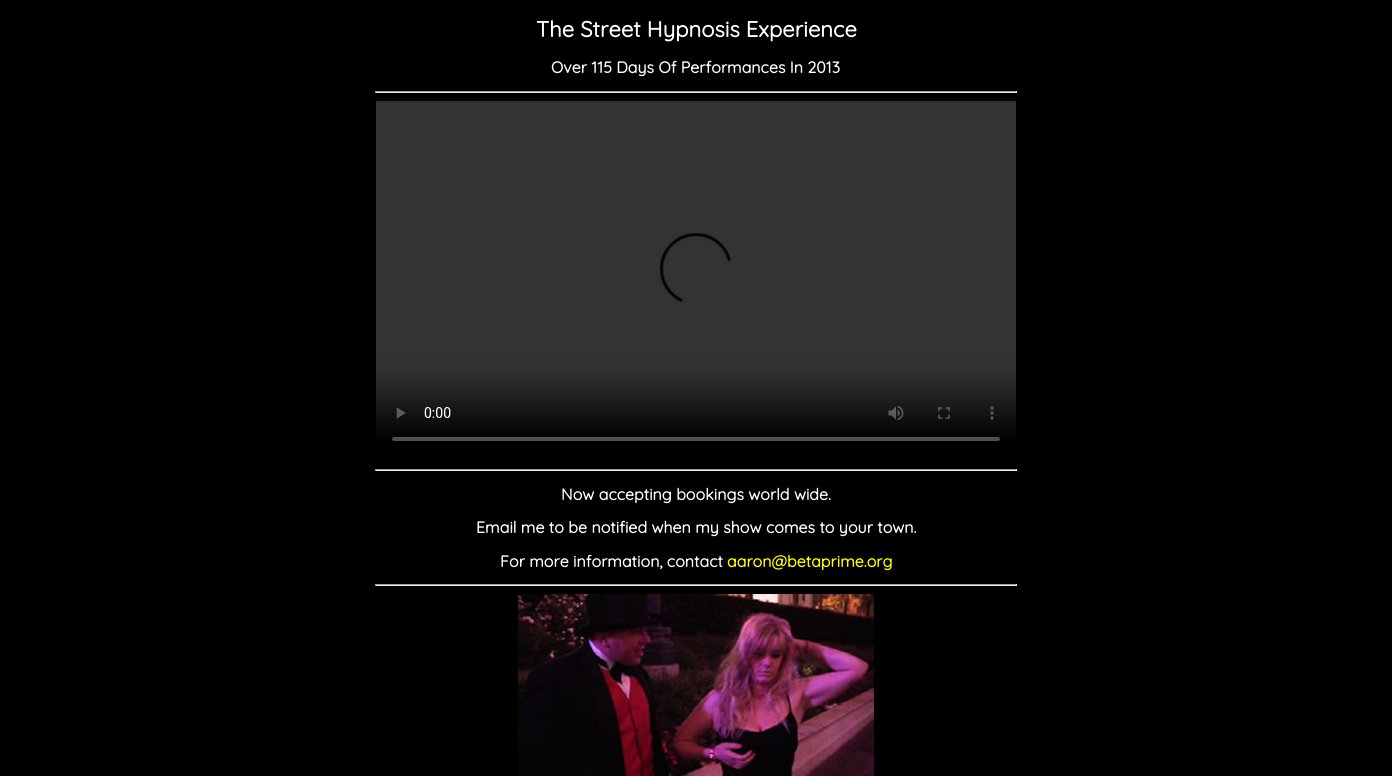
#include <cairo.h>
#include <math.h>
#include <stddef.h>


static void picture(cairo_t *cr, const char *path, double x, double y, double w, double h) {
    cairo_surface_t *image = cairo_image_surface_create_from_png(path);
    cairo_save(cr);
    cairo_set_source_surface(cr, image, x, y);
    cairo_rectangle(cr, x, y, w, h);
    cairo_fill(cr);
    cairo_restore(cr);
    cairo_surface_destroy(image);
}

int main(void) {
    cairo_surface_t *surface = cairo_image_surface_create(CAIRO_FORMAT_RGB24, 1392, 776);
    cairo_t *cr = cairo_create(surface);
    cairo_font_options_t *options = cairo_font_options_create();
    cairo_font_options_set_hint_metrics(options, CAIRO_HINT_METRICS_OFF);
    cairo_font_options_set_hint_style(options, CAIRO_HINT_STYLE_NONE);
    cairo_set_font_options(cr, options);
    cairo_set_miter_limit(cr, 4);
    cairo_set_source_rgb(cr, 0, 0, 0);
    cairo_paint(cr);
    cairo_select_font_face(cr, "Quicksand", CAIRO_FONT_SLANT_NORMAL, CAIRO_FONT_WEIGHT_BOLD);
    cairo_set_font_size(cr, 22);
    cairo_set_source_rgb(cr, 1, 1, 1);
    cairo_move_to(cr, 536, 37);
    cairo_show_text(cr, "The Street Hypnosis Experience");
    cairo_set_font_size(cr, 16);
    cairo_move_to(cr, 551, 73);
    cairo_show_text(cr, "Over 115 Days Of Performances In 2013");
    cairo_set_source_rgb(cr, 0.624, 0.624, 0.624);
    cairo_rectangle(cr, 375, 91, 642, 1);
    cairo_fill(cr);
    cairo_set_source_rgb(cr, 0.933, 0.933, 0.933);
    cairo_rectangle(cr, 1016, 91, 1, 2);
    cairo_fill(cr);
    cairo_rectangle(cr, 375, 92, 642, 1);
    cairo_fill(cr);
    cairo_set_source_rgb(cr, 0.624, 0.624, 0.624);
    cairo_rectangle(cr, 375, 91, 1, 2);
    cairo_fill(cr);
    picture(cr, "img1.png", 376, 101, 640, 340);
    cairo_rectangle(cr, 375, 469, 642, 1);
    cairo_fill(cr);
    cairo_set_source_rgb(cr, 0.933, 0.933, 0.933);
    cairo_rectangle(cr, 1016, 469, 1, 2);
    cairo_fill(cr);
    cairo_rectangle(cr, 375, 470, 642, 1);
    cairo_fill(cr);
    cairo_set_source_rgb(cr, 0.624, 0.624, 0.624);
    cairo_rectangle(cr, 375, 469, 1, 2);
    cairo_fill(cr);
    cairo_set_source_rgb(cr, 1, 1, 1);
    cairo_move_to(cr, 561, 500);
    cairo_show_text(cr, "Now accepting bookings world wide.");
    cairo_move_to(cr, 476, 533);
    cairo_show_text(cr, "Email me to be notified when my show comes to your town.");
    cairo_move_to(cr, 500, 567);
    cairo_show_text(cr, "For more information, contact");
    cairo_set_source_rgb(cr, 1, 1, 0);
    cairo_move_to(cr, 727, 567);
    cairo_show_text(cr, "aaron@betaprime.org");
    cairo_set_source_rgb(cr, 0.624, 0.624, 0.624);
    cairo_rectangle(cr, 375, 584, 642, 1);
    cairo_fill(cr);
    cairo_set_source_rgb(cr, 0.933, 0.933, 0.933);
    cairo_rectangle(cr, 1016, 584, 1, 2);
    cairo_fill(cr);
    cairo_rectangle(cr, 375, 585, 642, 1);
    cairo_fill(cr);
    cairo_set_source_rgb(cr, 0.624, 0.624, 0.624);
    cairo_rectangle(cr, 375, 584, 1, 2);
    cairo_fill(cr);
    picture(cr, "img2.png", 518, 594, 356, 182);
    cairo_surface_write_to_png(surface, "page.png");
    cairo_font_options_destroy(options);
    cairo_destroy(cr);
    cairo_surface_destroy(surface);
    return 0;
}
